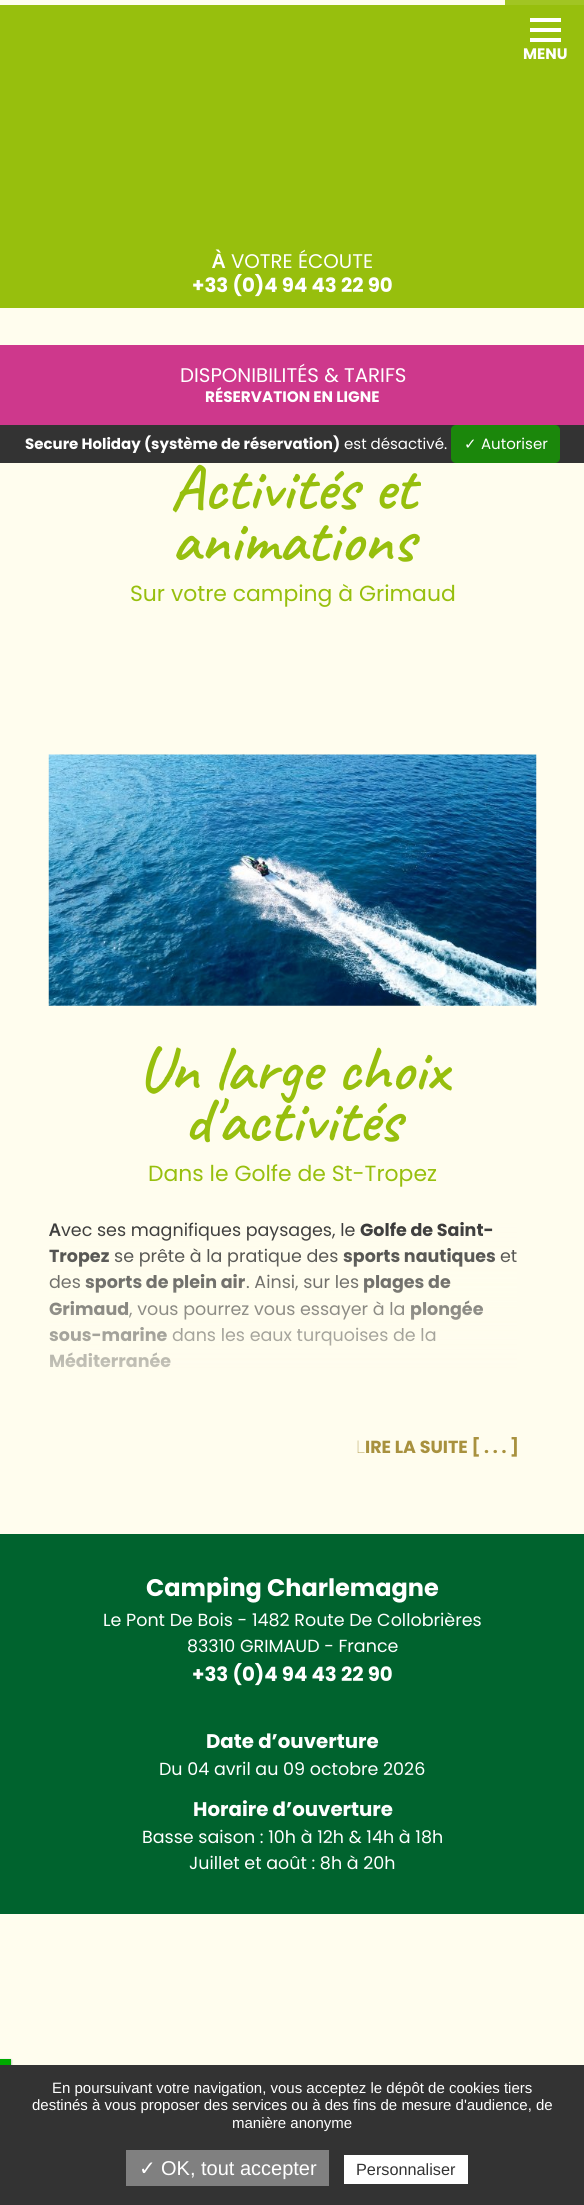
#include <cairo.h>
#include <math.h>
#include <stddef.h>


static void round_rect(cairo_t *cr, double x, double y, double w, double h, double r) {
    cairo_new_sub_path(cr);
    cairo_arc(cr, x + w - r, y + h - r, r, 0, M_PI / 2);
    cairo_arc(cr, x + r, y + h - r, r, M_PI / 2, M_PI);
    cairo_arc(cr, x + r, y + r, r, M_PI, 1.5 * M_PI);
    cairo_arc(cr, x + w - r, y + r, r, 1.5 * M_PI, 2 * M_PI);
    cairo_close_path(cr);
}

static void shadow(cairo_t *cr, double x, double y, double w, double h, double r, double blur, double alpha) {
    cairo_push_group_with_content(cr, CAIRO_CONTENT_ALPHA);
    cairo_set_operator(cr, CAIRO_OPERATOR_SOURCE);
    for (int i = 15; i >= -15 && fmin(w, h) + blur * i / 3 > 0; i -= 2) {
        double e = blur * i / 6;
        cairo_set_source_rgba(cr, 0, 0, 0, alpha * erfc((i - 1) / 8.5) / 2);
        round_rect(cr, x - e, y - e, w + 2 * e, h + 2 * e, fmax(0, fmin(r + e + blur * .6, fmin(w, h) / 2 + e)));
        cairo_fill(cr);
    }
    cairo_pattern_t *soft = cairo_pop_group(cr);
    cairo_mask(cr, soft);
    cairo_pattern_destroy(soft);
}

static void picture(cairo_t *cr, const char *path, double x, double y, double w, double h) {
    cairo_surface_t *image = cairo_image_surface_create_from_png(path);
    cairo_save(cr);
    cairo_set_source_surface(cr, image, x, y);
    cairo_rectangle(cr, x, y, w, h);
    cairo_fill(cr);
    cairo_restore(cr);
    cairo_surface_destroy(image);
}

int main(void) {
    cairo_surface_t *surface = cairo_image_surface_create(CAIRO_FORMAT_RGB24, 584, 2205);
    cairo_t *cr = cairo_create(surface);
    cairo_font_options_t *options = cairo_font_options_create();
    cairo_font_options_set_hint_metrics(options, CAIRO_HINT_METRICS_OFF);
    cairo_font_options_set_hint_style(options, CAIRO_HINT_STYLE_NONE);
    cairo_set_font_options(cr, options);
    cairo_set_miter_limit(cr, 4);
    cairo_pattern_t *gradient;
    cairo_set_source_rgb(cr, 1, 0.992, 0.933);
    cairo_paint(cr);
    cairo_set_source_rgb(cr, 0.631, 0.773, 0.137);
    cairo_rectangle(cr, 505, 0, 79, 5);
    cairo_fill(cr);
    cairo_set_source_rgb(cr, 0.592, 0.749, 0.051);
    cairo_rectangle(cr, 0, 5, 584, 303);
    cairo_fill(cr);
    cairo_set_source_rgb(cr, 1, 1, 1);
    cairo_rectangle(cr, 530, 18, 31, 4);
    cairo_fill(cr);
    cairo_rectangle(cr, 530, 28, 31, 4);
    cairo_fill(cr);
    cairo_rectangle(cr, 530, 38, 31, 4);
    cairo_fill(cr);
    cairo_select_font_face(cr, "Poppins", CAIRO_FONT_SLANT_NORMAL, CAIRO_FONT_WEIGHT_BOLD);
    cairo_set_font_size(cr, 15.25);
    cairo_move_to(cr, 523, 59);
    cairo_show_text(cr, "MENU");
    cairo_select_font_face(cr, "Noto Sans SemiBold", CAIRO_FONT_SLANT_NORMAL, CAIRO_FONT_WEIGHT_NORMAL);
    cairo_set_font_size(cr, 19.75);
    cairo_move_to(cr, 212, 268);
    cairo_show_text(cr, "À");
    cairo_select_font_face(cr, "Poppins", CAIRO_FONT_SLANT_NORMAL, CAIRO_FONT_WEIGHT_NORMAL);
    cairo_move_to(cr, 231, 268);
    cairo_show_text(cr, "VOTRE ÉCOUTE");
    cairo_select_font_face(cr, "Poppins", CAIRO_FONT_SLANT_NORMAL, CAIRO_FONT_WEIGHT_BOLD);
    cairo_move_to(cr, 192, 292);
    cairo_show_text(cr, "+33 (0)4 94 43 22 90");
    cairo_set_source_rgb(cr, 0.808, 0.22, 0.549);
    cairo_rectangle(cr, 0, 345, 584, 80);
    cairo_fill(cr);
    cairo_select_font_face(cr, "Poppins", CAIRO_FONT_SLANT_NORMAL, CAIRO_FONT_WEIGHT_NORMAL);
    cairo_set_source_rgb(cr, 1, 1, 1);
    cairo_move_to(cr, 180, 382);
    cairo_show_text(cr, "DISPONIBILITÉS & TARIFS");
    cairo_select_font_face(cr, "Poppins", CAIRO_FONT_SLANT_NORMAL, CAIRO_FONT_WEIGHT_BOLD);
    cairo_set_font_size(cr, 15.25);
    cairo_move_to(cr, 205, 402);
    cairo_show_text(cr, "RÉSERVATION EN LIGNE");
    cairo_set_source_rgb(cr, 0.2, 0.2, 0.2);
    cairo_rectangle(cr, 0, 425, 584, 38);
    cairo_fill(cr);
    cairo_set_font_size(cr, 15);
    cairo_set_source_rgb(cr, 1, 1, 1);
    cairo_move_to(cr, 25, 449);
    cairo_show_text(cr, "Secure Holiday (système de réservation)");
    cairo_select_font_face(cr, "Poppins", CAIRO_FONT_SLANT_NORMAL, CAIRO_FONT_WEIGHT_NORMAL);
    cairo_move_to(cr, 344, 449);
    cairo_show_text(cr, "est désactivé.");
    cairo_set_source_rgb(cr, 0.106, 0.529, 0.043);
    round_rect(cr, 451, 425, 109, 38, 5);
    cairo_fill(cr);
    cairo_select_font_face(cr, "DejaVu Sans", CAIRO_FONT_SLANT_NORMAL, CAIRO_FONT_WEIGHT_NORMAL);
    cairo_set_source_rgb(cr, 1, 1, 1);
    cairo_move_to(cr, 464, 449);
    cairo_show_text(cr, "✓");
    cairo_select_font_face(cr, "Poppins", CAIRO_FONT_SLANT_NORMAL, CAIRO_FONT_WEIGHT_NORMAL);
    cairo_move_to(cr, 481, 449);
    cairo_show_text(cr, "Autoriser");
    cairo_select_font_face(cr, "Caveat SemiBold", CAIRO_FONT_SLANT_NORMAL, CAIRO_FONT_WEIGHT_NORMAL);
    cairo_set_font_size(cr, 64.25);
    cairo_set_source_rgb(cr, 0.592, 0.749, 0.051);
    cairo_move_to(cr, 170, 509);
    cairo_show_text(cr, "Activités et");
    cairo_move_to(cr, 171, 561);
    cairo_show_text(cr, "animations");
    cairo_select_font_face(cr, "Poppins", CAIRO_FONT_SLANT_NORMAL, CAIRO_FONT_WEIGHT_NORMAL);
    cairo_set_font_size(cr, 21.9);
    cairo_move_to(cr, 130, 601);
    cairo_show_text(cr, "Sur votre camping à Grimaud");
    picture(cr, "img1.png", 48, 754, 489, 252);
    cairo_select_font_face(cr, "Caveat SemiBold", CAIRO_FONT_SLANT_NORMAL, CAIRO_FONT_WEIGHT_NORMAL);
    cairo_set_font_size(cr, 64.25);
    cairo_move_to(cr, 138, 1090);
    cairo_show_text(cr, "Un large choix");
    cairo_move_to(cr, 184, 1141);
    cairo_show_text(cr, "d'activités");
    cairo_select_font_face(cr, "Poppins", CAIRO_FONT_SLANT_NORMAL, CAIRO_FONT_WEIGHT_NORMAL);
    cairo_set_font_size(cr, 21.9);
    cairo_move_to(cr, 148, 1181);
    cairo_show_text(cr, "Dans le Golfe de St-Tropez");
    cairo_select_font_face(cr, "Noto Sans SemiBold", CAIRO_FONT_SLANT_NORMAL, CAIRO_FONT_WEIGHT_NORMAL);
    cairo_set_font_size(cr, 17.5);
    cairo_set_source_rgb(cr, 0.2, 0.2, 0.2);
    cairo_move_to(cr, 49, 1236);
    cairo_show_text(cr, "A");
    cairo_select_font_face(cr, "Poppins", CAIRO_FONT_SLANT_NORMAL, CAIRO_FONT_WEIGHT_NORMAL);
    cairo_move_to(cr, 61, 1236);
    cairo_show_text(cr, "vec ses magnifiques paysages, le");
    cairo_select_font_face(cr, "Poppins", CAIRO_FONT_SLANT_NORMAL, CAIRO_FONT_WEIGHT_BOLD);
    cairo_move_to(cr, 360, 1236);
    cairo_show_text(cr, "Golfe de Saint-");
    cairo_move_to(cr, 49, 1262);
    cairo_show_text(cr, "Tropez");
    cairo_select_font_face(cr, "Poppins", CAIRO_FONT_SLANT_NORMAL, CAIRO_FONT_WEIGHT_NORMAL);
    cairo_move_to(cr, 114, 1262);
    cairo_show_text(cr, "se prête à la pratique des");
    cairo_select_font_face(cr, "Poppins", CAIRO_FONT_SLANT_NORMAL, CAIRO_FONT_WEIGHT_BOLD);
    cairo_move_to(cr, 343, 1262);
    cairo_show_text(cr, "sports nautiques");
    cairo_select_font_face(cr, "Poppins", CAIRO_FONT_SLANT_NORMAL, CAIRO_FONT_WEIGHT_NORMAL);
    cairo_move_to(cr, 500, 1262);
    cairo_show_text(cr, "et");
    cairo_move_to(cr, 49, 1288);
    cairo_show_text(cr, "des");
    cairo_select_font_face(cr, "Poppins", CAIRO_FONT_SLANT_NORMAL, CAIRO_FONT_WEIGHT_BOLD);
    cairo_move_to(cr, 85, 1288);
    cairo_show_text(cr, "sports de plein air");
    cairo_select_font_face(cr, "Poppins", CAIRO_FONT_SLANT_NORMAL, CAIRO_FONT_WEIGHT_NORMAL);
    cairo_move_to(cr, 246, 1288);
    cairo_show_text(cr, ". Ainsi, sur les");
    cairo_select_font_face(cr, "Poppins", CAIRO_FONT_SLANT_NORMAL, CAIRO_FONT_WEIGHT_BOLD);
    cairo_move_to(cr, 363, 1288);
    cairo_show_text(cr, "plages de");
    cairo_move_to(cr, 49, 1315);
    cairo_show_text(cr, "Grimaud");
    cairo_select_font_face(cr, "Poppins", CAIRO_FONT_SLANT_NORMAL, CAIRO_FONT_WEIGHT_NORMAL);
    cairo_move_to(cr, 129, 1315);
    cairo_show_text(cr, ", vous pourrez vous essayer à la");
    cairo_select_font_face(cr, "Poppins", CAIRO_FONT_SLANT_NORMAL, CAIRO_FONT_WEIGHT_BOLD);
    cairo_move_to(cr, 410, 1315);
    cairo_show_text(cr, "plongée");
    cairo_move_to(cr, 49, 1341);
    cairo_show_text(cr, "sous-marine");
    cairo_select_font_face(cr, "Poppins", CAIRO_FONT_SLANT_NORMAL, CAIRO_FONT_WEIGHT_NORMAL);
    cairo_move_to(cr, 172, 1341);
    cairo_show_text(cr, "dans les eaux turquoises de la");
    cairo_select_font_face(cr, "Poppins", CAIRO_FONT_SLANT_NORMAL, CAIRO_FONT_WEIGHT_BOLD);
    cairo_move_to(cr, 49, 1367);
    cairo_show_text(cr, "Méditerranée");
    gradient = cairo_pattern_create_linear(293, 1218, 293, 1428);
    cairo_pattern_add_color_stop_rgba(gradient, 0, 1, 0.992, 0.933, 0);
    cairo_pattern_add_color_stop_rgba(gradient, 1, 1, 0.992, 0.933, 1);
    cairo_set_source(cr, gradient);
    cairo_pattern_destroy(gradient);
    cairo_rectangle(cr, 49, 1223, 468, 145);
    cairo_fill(cr);
    cairo_select_font_face(cr, "Noto Sans Thin", CAIRO_FONT_SLANT_NORMAL, CAIRO_FONT_WEIGHT_NORMAL);
    cairo_set_source_rgb(cr, 0.659, 0.569, 0.243);
    cairo_move_to(cr, 356, 1453);
    cairo_show_text(cr, "L");
    cairo_select_font_face(cr, "Poppins", CAIRO_FONT_SLANT_NORMAL, CAIRO_FONT_WEIGHT_BOLD);
    cairo_move_to(cr, 365, 1453);
    cairo_show_text(cr, "IRE LA SUITE [ . . . ]");
    cairo_set_source_rgb(cr, 0, 0.388, 0.18);
    cairo_rectangle(cr, 0, 1534, 584, 380);
    cairo_fill(cr);
    cairo_set_font_size(cr, 24);
    cairo_set_source_rgb(cr, 1, 1, 1);
    cairo_move_to(cr, 146, 1596);
    cairo_show_text(cr, "Camping Charlemagne");
    cairo_select_font_face(cr, "Poppins", CAIRO_FONT_SLANT_NORMAL, CAIRO_FONT_WEIGHT_NORMAL);
    cairo_set_font_size(cr, 17.5);
    cairo_move_to(cr, 103, 1626);
    cairo_show_text(cr, "Le Pont De Bois - 1482 Route De Collobrières");
    cairo_move_to(cr, 187, 1652);
    cairo_show_text(cr, "83310 GRIMAUD - France");
    cairo_select_font_face(cr, "Poppins", CAIRO_FONT_SLANT_NORMAL, CAIRO_FONT_WEIGHT_BOLD);
    cairo_set_font_size(cr, 19.75);
    cairo_move_to(cr, 192, 1681);
    cairo_show_text(cr, "+33 (0)4 94 43 22 90");
    cairo_move_to(cr, 206, 1748);
    cairo_show_text(cr, "Date d’ouverture");
    cairo_select_font_face(cr, "Poppins", CAIRO_FONT_SLANT_NORMAL, CAIRO_FONT_WEIGHT_NORMAL);
    cairo_set_font_size(cr, 17.5);
    cairo_move_to(cr, 159, 1775);
    cairo_show_text(cr, "Du 04 avril au 09 octobre 2026");
    cairo_select_font_face(cr, "Poppins", CAIRO_FONT_SLANT_NORMAL, CAIRO_FONT_WEIGHT_BOLD);
    cairo_set_font_size(cr, 19.75);
    cairo_move_to(cr, 193, 1816);
    cairo_show_text(cr, "Horaire d’ouverture");
    cairo_select_font_face(cr, "Poppins", CAIRO_FONT_SLANT_NORMAL, CAIRO_FONT_WEIGHT_NORMAL);
    cairo_set_font_size(cr, 17.5);
    cairo_move_to(cr, 142, 1843);
    cairo_show_text(cr, "Basse saison : 10h à 12h & 14h à 18h");
    cairo_move_to(cr, 189, 1869);
    cairo_show_text(cr, "Juillet et août : 8h à 20h");
    cairo_set_source_rgb(cr, 0.333, 0.333, 0.333);
    shadow(cr, 0, 2060, 11, 6, 0, 1, 1);
    cairo_set_source_rgb(cr, 1, 1, 1);
    shadow(cr, 0, 2059, 11, 6, 0, 1, 1);
    cairo_set_source_rgb(cr, 0, 0.667, 0);
    cairo_rectangle(cr, 0, 2059, 11, 6);
    cairo_fill(cr);
    cairo_set_source_rgb(cr, 0.2, 0.2, 0.2);
    cairo_rectangle(cr, 0, 2065, 584, 140);
    cairo_fill(cr);
    cairo_select_font_face(cr, "Liberation Sans", CAIRO_FONT_SLANT_NORMAL, CAIRO_FONT_WEIGHT_NORMAL);
    cairo_set_font_size(cr, 15);
    cairo_set_source_rgb(cr, 1, 1, 1);
    cairo_move_to(cr, 52, 2093);
    cairo_show_text(cr, "En poursuivant votre navigation, vous acceptez le dépôt de cookies tiers");
    cairo_move_to(cr, 32, 2110);
    cairo_show_text(cr, "destinés à vous proposer des services ou à des fins de mesure d'audience, de");
    cairo_move_to(cr, 232, 2128);
    cairo_show_text(cr, "manière anonyme");
    cairo_set_source_rgb(cr, 0.502, 0.502, 0.502);
    cairo_rectangle(cr, 126, 2150, 203, 36);
    cairo_fill(cr);
    cairo_select_font_face(cr, "DejaVu Sans", CAIRO_FONT_SLANT_NORMAL, CAIRO_FONT_WEIGHT_NORMAL);
    cairo_set_font_size(cr, 20);
    cairo_set_source_rgb(cr, 1, 1, 1);
    cairo_move_to(cr, 139, 2175);
    cairo_show_text(cr, "✓");
    cairo_select_font_face(cr, "Liberation Sans", CAIRO_FONT_SLANT_NORMAL, CAIRO_FONT_WEIGHT_NORMAL);
    cairo_move_to(cr, 161, 2175);
    cairo_show_text(cr, "OK, tout accepter");
    cairo_rectangle(cr, 344, 2155, 124, 29);
    cairo_fill(cr);
    cairo_set_font_size(cr, 16.25);
    cairo_set_source_rgb(cr, 0.2, 0.2, 0.2);
    cairo_move_to(cr, 356, 2175);
    cairo_show_text(cr, "Personnaliser");
    cairo_surface_write_to_png(surface, "page.png");
    cairo_font_options_destroy(options);
    cairo_destroy(cr);
    cairo_surface_destroy(surface);
    return 0;
}
